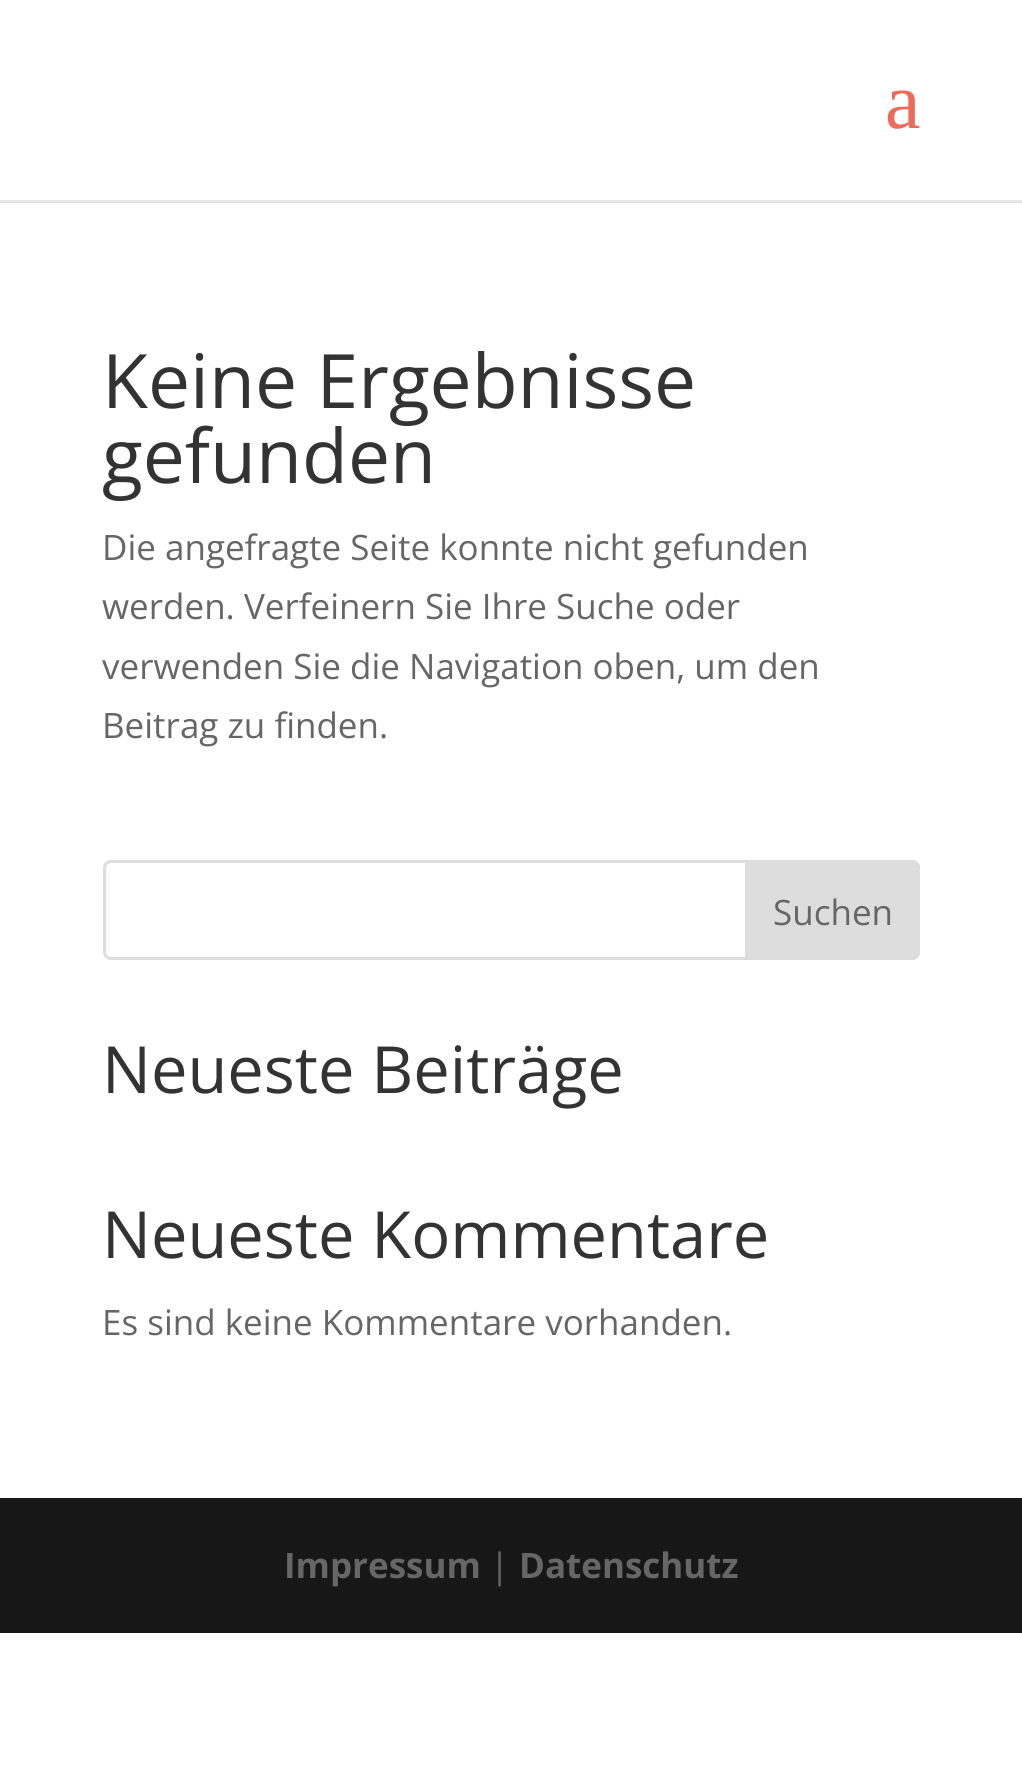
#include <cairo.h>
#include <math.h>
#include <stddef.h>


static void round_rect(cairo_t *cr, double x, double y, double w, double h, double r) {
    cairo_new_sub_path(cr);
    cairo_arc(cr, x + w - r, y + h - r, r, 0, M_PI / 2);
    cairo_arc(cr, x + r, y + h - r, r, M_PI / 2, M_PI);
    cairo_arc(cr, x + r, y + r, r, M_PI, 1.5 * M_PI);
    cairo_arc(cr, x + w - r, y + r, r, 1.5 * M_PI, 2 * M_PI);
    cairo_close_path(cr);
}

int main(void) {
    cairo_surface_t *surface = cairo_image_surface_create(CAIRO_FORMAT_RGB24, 1022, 1776);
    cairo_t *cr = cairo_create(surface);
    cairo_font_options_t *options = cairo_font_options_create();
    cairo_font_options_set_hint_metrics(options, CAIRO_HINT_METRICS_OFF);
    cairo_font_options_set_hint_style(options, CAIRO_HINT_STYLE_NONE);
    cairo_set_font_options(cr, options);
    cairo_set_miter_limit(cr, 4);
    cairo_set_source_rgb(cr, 1, 1, 1);
    cairo_paint(cr);
    cairo_set_source_rgb(cr, 0.902, 0.902, 0.902);
    cairo_new_path(cr);
    cairo_move_to(cr, 0, 200);
    cairo_line_to(cr, 0, 203);
    cairo_line_to(cr, 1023, 203);
    cairo_line_to(cr, 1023, 3);
    cairo_line_to(cr, 1022, 3);
    cairo_line_to(cr, 1022, 200);
    cairo_close_path(cr);
    cairo_fill(cr);
    cairo_select_font_face(cr, "Liberation Serif", CAIRO_FONT_SLANT_NORMAL, CAIRO_FONT_WEIGHT_NORMAL);
    cairo_set_font_size(cr, 80);
    cairo_set_source_rgb(cr, 0.933, 0.416, 0.357);
    cairo_move_to(cr, 885, 128);
    cairo_show_text(cr, "a");
    cairo_select_font_face(cr, "Open Sans", CAIRO_FONT_SLANT_NORMAL, CAIRO_FONT_WEIGHT_NORMAL);
    cairo_set_font_size(cr, 75);
    cairo_set_source_rgb(cr, 0.2, 0.2, 0.2);
    cairo_move_to(cr, 102, 408);
    cairo_show_text(cr, "Keine Ergebnisse");
    cairo_move_to(cr, 102, 483);
    cairo_show_text(cr, "gefunden");
    cairo_set_font_size(cr, 35);
    cairo_set_source_rgb(cr, 0.4, 0.4, 0.4);
    cairo_move_to(cr, 102, 560);
    cairo_show_text(cr, "Die angefragte Seite konnte nicht gefunden");
    cairo_move_to(cr, 102, 619);
    cairo_show_text(cr, "werden. Verfeinern Sie Ihre Suche oder");
    cairo_move_to(cr, 102, 679);
    cairo_show_text(cr, "verwenden Sie die Navigation oben, um den");
    cairo_move_to(cr, 102, 738);
    cairo_show_text(cr, "Beitrag zu finden.");
    round_rect(cr, 104.5, 861.5, 814, 97, 6.5);
    cairo_set_source_rgb(cr, 0.867, 0.867, 0.867);
    cairo_set_line_width(cr, 3);
    cairo_stroke(cr);
    cairo_new_path(cr);
    cairo_move_to(cr, 746.5, 861.5);
    cairo_line_to(cr, 912, 861.5);
    cairo_curve_to(cr, 915.5, 861.5, 918.5, 864.5, 918.5, 868);
    cairo_line_to(cr, 918.5, 952);
    cairo_curve_to(cr, 918.5, 955.5, 915.5, 958.5, 912, 958.5);
    cairo_line_to(cr, 746.5, 958.5);
    cairo_close_path(cr);
    cairo_fill_preserve(cr);
    cairo_stroke(cr);
    cairo_set_source_rgb(cr, 0.4, 0.4, 0.4);
    cairo_move_to(cr, 773, 925);
    cairo_show_text(cr, "Suchen");
    cairo_set_font_size(cr, 65);
    cairo_set_source_rgb(cr, 0.2, 0.2, 0.2);
    cairo_move_to(cr, 102, 1093);
    cairo_show_text(cr, "Neueste Beiträge");
    cairo_move_to(cr, 102, 1258);
    cairo_show_text(cr, "Neueste Kommentare");
    cairo_set_font_size(cr, 35);
    cairo_set_source_rgb(cr, 0.4, 0.4, 0.4);
    cairo_move_to(cr, 102, 1335);
    cairo_show_text(cr, "Es sind keine Kommentare vorhanden.");
    cairo_set_source_rgb(cr, 0.09, 0.09, 0.09);
    cairo_rectangle(cr, 0, 1498, 1022, 135);
    cairo_fill(cr);
    cairo_select_font_face(cr, "Open Sans", CAIRO_FONT_SLANT_NORMAL, CAIRO_FONT_WEIGHT_BOLD);
    cairo_set_source_rgb(cr, 0.4, 0.4, 0.4);
    cairo_move_to(cr, 284, 1578);
    cairo_show_text(cr, "Impressum");
    cairo_select_font_face(cr, "Open Sans", CAIRO_FONT_SLANT_NORMAL, CAIRO_FONT_WEIGHT_NORMAL);
    cairo_move_to(cr, 490, 1578);
    cairo_show_text(cr, "|");
    cairo_select_font_face(cr, "Open Sans", CAIRO_FONT_SLANT_NORMAL, CAIRO_FONT_WEIGHT_BOLD);
    cairo_move_to(cr, 519, 1578);
    cairo_show_text(cr, "Datenschutz");
    cairo_surface_write_to_png(surface, "page.png");
    cairo_font_options_destroy(options);
    cairo_destroy(cr);
    cairo_surface_destroy(surface);
    return 0;
}
